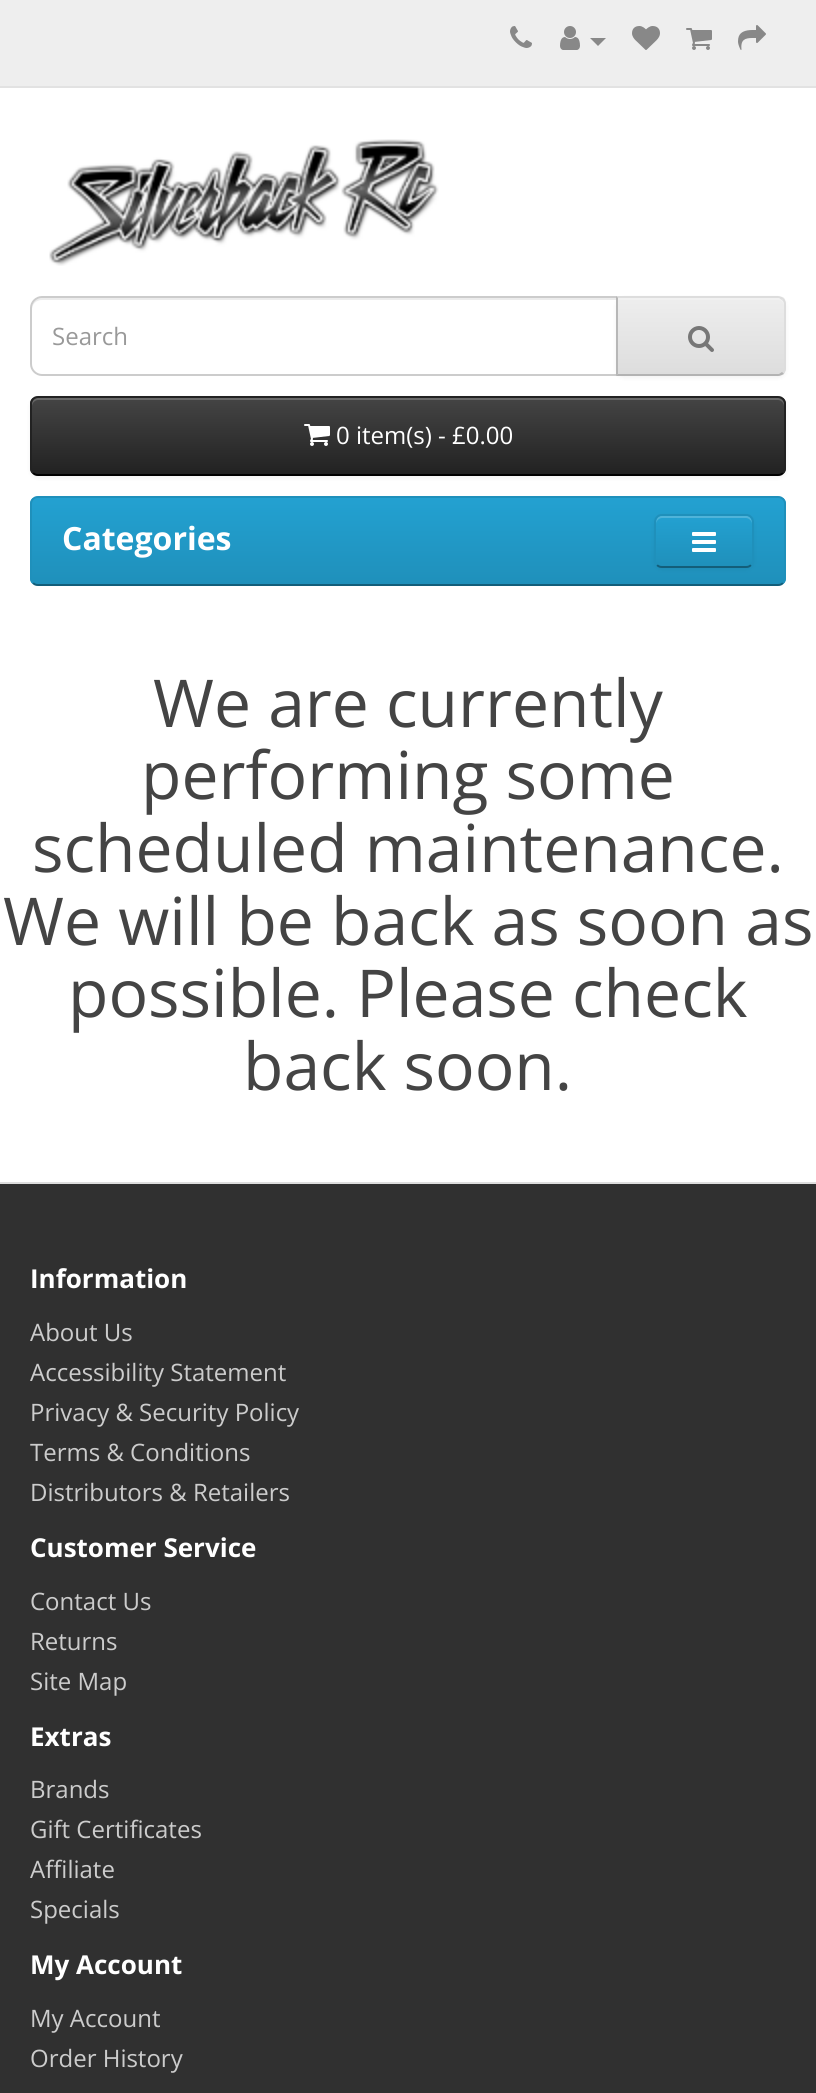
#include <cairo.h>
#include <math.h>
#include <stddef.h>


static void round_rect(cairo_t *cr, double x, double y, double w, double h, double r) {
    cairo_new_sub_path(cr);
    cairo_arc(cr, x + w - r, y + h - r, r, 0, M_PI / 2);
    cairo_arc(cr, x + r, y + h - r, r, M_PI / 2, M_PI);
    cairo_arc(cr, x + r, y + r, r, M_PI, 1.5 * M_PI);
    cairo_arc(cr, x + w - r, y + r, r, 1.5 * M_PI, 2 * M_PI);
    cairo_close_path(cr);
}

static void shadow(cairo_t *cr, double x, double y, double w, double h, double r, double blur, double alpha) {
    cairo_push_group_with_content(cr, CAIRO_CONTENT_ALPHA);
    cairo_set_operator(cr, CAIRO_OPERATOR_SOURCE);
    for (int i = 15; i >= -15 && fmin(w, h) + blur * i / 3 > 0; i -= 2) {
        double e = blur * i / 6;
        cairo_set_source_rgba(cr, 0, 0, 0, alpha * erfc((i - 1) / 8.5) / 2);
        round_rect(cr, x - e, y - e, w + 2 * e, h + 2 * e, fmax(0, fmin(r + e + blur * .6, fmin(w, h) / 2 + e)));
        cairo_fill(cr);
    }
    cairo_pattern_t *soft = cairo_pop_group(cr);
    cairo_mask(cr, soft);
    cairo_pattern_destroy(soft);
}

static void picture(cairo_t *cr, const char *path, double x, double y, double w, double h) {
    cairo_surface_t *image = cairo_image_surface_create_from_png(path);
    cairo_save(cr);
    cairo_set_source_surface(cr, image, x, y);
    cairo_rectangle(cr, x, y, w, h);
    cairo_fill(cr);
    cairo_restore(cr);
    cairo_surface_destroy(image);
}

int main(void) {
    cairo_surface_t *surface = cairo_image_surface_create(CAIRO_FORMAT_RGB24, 816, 2093);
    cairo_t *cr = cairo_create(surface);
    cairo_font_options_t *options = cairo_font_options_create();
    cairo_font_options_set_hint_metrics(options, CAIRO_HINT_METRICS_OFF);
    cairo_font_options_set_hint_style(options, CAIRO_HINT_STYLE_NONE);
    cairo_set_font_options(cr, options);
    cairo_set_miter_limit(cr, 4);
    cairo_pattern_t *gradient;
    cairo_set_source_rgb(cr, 1, 1, 1);
    cairo_paint(cr);
    cairo_set_source_rgb(cr, 0.933, 0.933, 0.933);
    cairo_rectangle(cr, 0, 0, 816, 86);
    cairo_fill(cr);
    cairo_set_source_rgb(cr, 0.886, 0.886, 0.886);
    cairo_rectangle(cr, 0, 86, 816, 2);
    cairo_fill(cr);
    picture(cr, "img1.png", 510, 26, 22, 22);
    picture(cr, "img2.png", 560, 26, 20, 24);
    cairo_set_source_rgb(cr, 0.533, 0.533, 0.533);
    cairo_new_path(cr);
    cairo_move_to(cr, 590, 38);
    cairo_line_to(cr, 606, 38);
    cairo_line_to(cr, 598, 46);
    cairo_close_path(cr);
    cairo_fill(cr);
    picture(cr, "img3.png", 632, 26, 28, 24);
    picture(cr, "img4.png", 686, 28, 26, 22);
    picture(cr, "img5.png", 738, 25, 28, 25);
    picture(cr, "img6.png", 49, 139, 390, 127);
    cairo_set_source_rgb(cr, 0.925, 0.925, 0.925);
    cairo_new_path(cr);
    cairo_move_to(cr, 42, 300);
    cairo_line_to(cr, 616, 300);
    cairo_line_to(cr, 616, 298);
    cairo_line_to(cr, 42, 298);
    cairo_curve_to(cr, 36, 298, 32, 302, 32, 308);
    cairo_line_to(cr, 32, 310);
    cairo_curve_to(cr, 32, 304, 36, 300, 42, 300);
    cairo_close_path(cr);
    cairo_fill(cr);
    cairo_new_path(cr);
    cairo_move_to(cr, 42, 297);
    cairo_line_to(cr, 617, 297);
    cairo_line_to(cr, 617, 375);
    cairo_line_to(cr, 42, 375);
    cairo_curve_to(cr, 36, 375, 31, 370, 31, 364);
    cairo_line_to(cr, 31, 308);
    cairo_curve_to(cr, 31, 302, 36, 297, 42, 297);
    cairo_close_path(cr);
    cairo_set_source_rgb(cr, 0.8, 0.8, 0.8);
    cairo_stroke(cr);
    cairo_select_font_face(cr, "Open Sans", CAIRO_FONT_SLANT_NORMAL, CAIRO_FONT_WEIGHT_NORMAL);
    cairo_set_font_size(cr, 24);
    cairo_set_source_rgb(cr, 0.6, 0.6, 0.6);
    cairo_move_to(cr, 52, 345);
    cairo_show_text(cr, "Search");
    cairo_set_source_rgb(cr, 0, 0, 0);
    shadow(cr, 616, 298, 170, 80, 8, 2, 0.05);
    cairo_save(cr);
    cairo_new_path(cr);
    cairo_move_to(cr, 616, 296);
    cairo_line_to(cr, 778, 296);
    cairo_curve_to(cr, 782.5, 296, 786, 299.5, 786, 304);
    cairo_line_to(cr, 786, 368);
    cairo_curve_to(cr, 786, 372.5, 782.5, 376, 778, 376);
    cairo_line_to(cr, 616, 376);
    cairo_close_path(cr);
    cairo_clip(cr);
    gradient = cairo_pattern_create_linear(701, 298, 701, 374);
    cairo_pattern_add_color_stop_rgba(gradient, 0, 0.933, 0.933, 0.933, 1);
    cairo_pattern_add_color_stop_rgba(gradient, 1, 0.867, 0.867, 0.867, 1);
    cairo_set_source(cr, gradient);
    cairo_pattern_destroy(gradient);
    cairo_rectangle(cr, 618, 298, 168, 76);
    cairo_fill(cr);
    cairo_restore(cr);
    cairo_set_source_rgb(cr, 0.945, 0.945, 0.945);
    cairo_new_path(cr);
    cairo_move_to(cr, 618, 300);
    cairo_line_to(cr, 778, 300);
    cairo_curve_to(cr, 781, 300, 784, 303, 784, 306);
    cairo_line_to(cr, 784, 304);
    cairo_curve_to(cr, 784, 301, 781, 298, 778, 298);
    cairo_line_to(cr, 618, 298);
    cairo_close_path(cr);
    cairo_fill(cr);
    cairo_set_source_rgb(cr, 0.867, 0.867, 0.867);
    cairo_new_path(cr);
    cairo_move_to(cr, 616, 296);
    cairo_line_to(cr, 618, 298);
    cairo_line_to(cr, 779, 298);
    cairo_line_to(cr, 782, 300);
    cairo_line_to(cr, 784, 298);
    cairo_curve_to(cr, 782, 297, 780, 296, 778, 296);
    cairo_close_path(cr);
    cairo_fill(cr);
    cairo_new_path(cr);
    cairo_move_to(cr, 786, 368);
    cairo_line_to(cr, 786, 304);
    cairo_curve_to(cr, 786, 302, 785, 300, 784, 298);
    cairo_line_to(cr, 782, 300);
    cairo_curve_to(cr, 783, 301, 784, 302, 784, 304);
    cairo_line_to(cr, 784, 368);
    cairo_curve_to(cr, 784, 370, 783, 371, 782, 372);
    cairo_line_to(cr, 784, 374);
    cairo_curve_to(cr, 785, 372, 786, 370, 786, 368);
    cairo_close_path(cr);
    cairo_fill(cr);
    cairo_set_source_rgb(cr, 0.702, 0.702, 0.702);
    cairo_new_path(cr);
    cairo_move_to(cr, 778, 376);
    cairo_curve_to(cr, 780, 376, 782, 375, 784, 374);
    cairo_line_to(cr, 782, 372);
    cairo_line_to(cr, 779, 374);
    cairo_line_to(cr, 618, 374);
    cairo_line_to(cr, 616, 376);
    cairo_close_path(cr);
    cairo_fill(cr);
    cairo_set_source_rgb(cr, 0.718, 0.718, 0.718);
    cairo_new_path(cr);
    cairo_move_to(cr, 616, 296);
    cairo_line_to(cr, 616, 376);
    cairo_line_to(cr, 618, 374);
    cairo_line_to(cr, 618, 298);
    cairo_close_path(cr);
    cairo_fill(cr);
    picture(cr, "img7.png", 688, 326, 26, 26);
    cairo_set_source_rgb(cr, 0, 0, 0);
    shadow(cr, 30, 398, 756, 80, 8, 2, 0.05);
    cairo_save(cr);
    round_rect(cr, 30, 396, 756, 80, 8);
    cairo_clip(cr);
    gradient = cairo_pattern_create_linear(408, 398, 408, 474);
    cairo_pattern_add_color_stop_rgba(gradient, 0, 0.267, 0.267, 0.267, 1);
    cairo_pattern_add_color_stop_rgba(gradient, 1, 0.133, 0.133, 0.133, 1);
    cairo_set_source(cr, gradient);
    cairo_pattern_destroy(gradient);
    cairo_rectangle(cr, 30, 398, 756, 76);
    cairo_fill(cr);
    cairo_restore(cr);
    cairo_set_source_rgb(cr, 0.412, 0.412, 0.412);
    cairo_new_path(cr);
    cairo_move_to(cr, 38, 400);
    cairo_line_to(cr, 778, 400);
    cairo_curve_to(cr, 781, 400, 784, 403, 784, 406);
    cairo_line_to(cr, 784, 404);
    cairo_curve_to(cr, 784, 401, 781, 398, 778, 398);
    cairo_line_to(cr, 38, 398);
    cairo_curve_to(cr, 35, 398, 32, 401, 32, 404);
    cairo_line_to(cr, 32, 406);
    cairo_curve_to(cr, 32, 403, 35, 400, 38, 400);
    cairo_close_path(cr);
    cairo_fill(cr);
    cairo_new_path(cr);
    cairo_move_to(cr, 783, 473);
    cairo_curve_to(cr, 781.5, 474.5, 780, 475, 778, 475);
    cairo_line_to(cr, 38, 475);
    cairo_curve_to(cr, 36, 475, 34.5, 474.5, 33, 473);
    cairo_set_source_rgb(cr, 0, 0, 0);
    cairo_stroke(cr);
    cairo_new_path(cr);
    cairo_move_to(cr, 33, 473);
    cairo_curve_to(cr, 31.5, 471.5, 31, 470, 31, 468);
    cairo_line_to(cr, 31, 404);
    cairo_curve_to(cr, 31, 402, 31.5, 400.5, 33, 399);
    cairo_curve_to(cr, 34.5, 397.5, 36, 397, 38, 397);
    cairo_line_to(cr, 778, 397);
    cairo_curve_to(cr, 780, 397, 781.5, 397.5, 783, 399);
    cairo_curve_to(cr, 784.5, 400.5, 785, 402, 785, 404);
    cairo_line_to(cr, 785, 468);
    cairo_curve_to(cr, 785, 470, 784.5, 471.5, 783, 473);
    cairo_set_source_rgb(cr, 0.133, 0.133, 0.133);
    cairo_stroke(cr);
    picture(cr, "img8.png", 304, 424, 26, 22);
    cairo_set_source_rgb(cr, 1, 1, 1);
    cairo_move_to(cr, 336, 444);
    cairo_show_text(cr, "0 item(s) - £0.00");
    cairo_save(cr);
    round_rect(cr, 30, 496, 756, 90, 8);
    cairo_clip(cr);
    gradient = cairo_pattern_create_linear(408, 498, 408, 584);
    cairo_pattern_add_color_stop_rgba(gradient, 0, 0.137, 0.631, 0.82, 1);
    cairo_pattern_add_color_stop_rgba(gradient, 1, 0.122, 0.565, 0.733, 1);
    cairo_set_source(cr, gradient);
    cairo_pattern_destroy(gradient);
    cairo_rectangle(cr, 30, 498, 756, 86);
    cairo_fill(cr);
    cairo_restore(cr);
    cairo_new_path(cr);
    cairo_move_to(cr, 783, 583);
    cairo_curve_to(cr, 781.5, 584.5, 780, 585, 778, 585);
    cairo_line_to(cr, 38, 585);
    cairo_curve_to(cr, 36, 585, 34.5, 584.5, 33, 583);
    cairo_set_source_rgb(cr, 0.078, 0.369, 0.478);
    cairo_stroke(cr);
    cairo_new_path(cr);
    cairo_move_to(cr, 33, 583);
    cairo_curve_to(cr, 31.5, 581.5, 31, 580, 31, 578);
    cairo_line_to(cr, 31, 504);
    cairo_curve_to(cr, 31, 502, 31.5, 500.5, 33, 499);
    cairo_curve_to(cr, 34.5, 497.5, 36, 497, 38, 497);
    cairo_line_to(cr, 778, 497);
    cairo_curve_to(cr, 780, 497, 781.5, 497.5, 783, 499);
    cairo_curve_to(cr, 784.5, 500.5, 785, 502, 785, 504);
    cairo_line_to(cr, 785, 578);
    cairo_curve_to(cr, 785, 580, 784.5, 581.5, 783, 583);
    cairo_set_source_rgb(cr, 0.122, 0.565, 0.733);
    cairo_stroke(cr);
    cairo_select_font_face(cr, "Open Sans", CAIRO_FONT_SLANT_NORMAL, CAIRO_FONT_WEIGHT_BOLD);
    cairo_set_font_size(cr, 32);
    cairo_set_source_rgb(cr, 1, 1, 1);
    cairo_move_to(cr, 62, 550);
    cairo_show_text(cr, "Categories");
    cairo_set_source_rgb(cr, 0, 0, 0);
    shadow(cr, 654, 516, 100, 54, 8, 2, 0.05);
    cairo_save(cr);
    round_rect(cr, 654, 514, 100, 54, 8);
    cairo_clip(cr);
    gradient = cairo_pattern_create_linear(704, 516, 704, 566);
    cairo_pattern_add_color_stop_rgba(gradient, 0, 0.137, 0.631, 0.82, 1);
    cairo_pattern_add_color_stop_rgba(gradient, 1, 0.122, 0.565, 0.733, 1);
    cairo_set_source(cr, gradient);
    cairo_pattern_destroy(gradient);
    cairo_rectangle(cr, 654, 516, 100, 50);
    cairo_fill(cr);
    cairo_restore(cr);
    cairo_set_source_rgba(cr, 1, 1, 1, 0.2);
    cairo_new_path(cr);
    cairo_move_to(cr, 662, 518);
    cairo_line_to(cr, 746, 518);
    cairo_curve_to(cr, 749, 518, 752, 521, 752, 524);
    cairo_curve_to(cr, 752, 512, 741, 516, 732, 516);
    cairo_line_to(cr, 676, 516);
    cairo_curve_to(cr, 667, 516, 656, 512, 656, 524);
    cairo_curve_to(cr, 656, 521, 659, 518, 662, 518);
    cairo_close_path(cr);
    cairo_fill(cr);
    cairo_new_path(cr);
    cairo_move_to(cr, 751, 565);
    cairo_curve_to(cr, 749.5, 566.5, 748, 567, 746, 567);
    cairo_line_to(cr, 662, 567);
    cairo_curve_to(cr, 660, 567, 658.5, 566.5, 657, 565);
    cairo_set_source_rgb(cr, 0.078, 0.369, 0.478);
    cairo_stroke(cr);
    cairo_new_path(cr);
    cairo_move_to(cr, 657, 565);
    cairo_curve_to(cr, 655.5, 563.5, 655, 562, 655, 560);
    cairo_line_to(cr, 655, 522);
    cairo_curve_to(cr, 655, 520, 655.5, 518.5, 657, 517);
    cairo_curve_to(cr, 658.5, 515.5, 660, 515, 662, 515);
    cairo_line_to(cr, 746, 515);
    cairo_curve_to(cr, 748, 515, 749.5, 515.5, 751, 517);
    cairo_curve_to(cr, 752.5, 518.5, 753, 520, 753, 522);
    cairo_line_to(cr, 753, 560);
    cairo_curve_to(cr, 753, 562, 752.5, 563.5, 751, 565);
    cairo_set_source_rgb(cr, 0.122, 0.565, 0.733);
    cairo_stroke(cr);
    picture(cr, "img9.png", 692, 532, 24, 20);
    cairo_select_font_face(cr, "Open Sans", CAIRO_FONT_SLANT_NORMAL, CAIRO_FONT_WEIGHT_NORMAL);
    cairo_set_font_size(cr, 66);
    cairo_set_source_rgb(cr, 0.267, 0.267, 0.267);
    cairo_move_to(cr, 153, 727);
    cairo_show_text(cr, "We are currently");
    cairo_move_to(cr, 141, 799);
    cairo_show_text(cr, "performing some");
    cairo_move_to(cr, 32, 872);
    cairo_show_text(cr, "scheduled maintenance.");
    cairo_move_to(cr, 3, 945);
    cairo_show_text(cr, "We will be back as soon as");
    cairo_move_to(cr, 68, 1017);
    cairo_show_text(cr, "possible. Please check");
    cairo_move_to(cr, 243, 1090);
    cairo_show_text(cr, "back soon.");
    cairo_set_source_rgb(cr, 0.188, 0.188, 0.188);
    cairo_rectangle(cr, 0, 1184, 816, 909);
    cairo_fill(cr);
    cairo_set_source_rgb(cr, 0.867, 0.867, 0.867);
    cairo_rectangle(cr, 0, 1182, 816, 2);
    cairo_fill(cr);
    cairo_select_font_face(cr, "Open Sans", CAIRO_FONT_SLANT_NORMAL, CAIRO_FONT_WEIGHT_BOLD);
    cairo_set_font_size(cr, 26);
    cairo_set_source_rgb(cr, 1, 1, 1);
    cairo_move_to(cr, 30, 1288);
    cairo_show_text(cr, "Information");
    cairo_select_font_face(cr, "Open Sans", CAIRO_FONT_SLANT_NORMAL, CAIRO_FONT_WEIGHT_NORMAL);
    cairo_set_font_size(cr, 24);
    cairo_set_source_rgb(cr, 0.8, 0.8, 0.8);
    cairo_move_to(cr, 30, 1341);
    cairo_show_text(cr, "About Us");
    cairo_move_to(cr, 30, 1381);
    cairo_show_text(cr, "Accessibility Statement");
    cairo_move_to(cr, 30, 1421);
    cairo_show_text(cr, "Privacy & Security Policy");
    cairo_move_to(cr, 30, 1461);
    cairo_show_text(cr, "Terms & Conditions");
    cairo_move_to(cr, 30, 1501);
    cairo_show_text(cr, "Distributors & Retailers");
    cairo_select_font_face(cr, "Open Sans", CAIRO_FONT_SLANT_NORMAL, CAIRO_FONT_WEIGHT_BOLD);
    cairo_set_font_size(cr, 26);
    cairo_set_source_rgb(cr, 1, 1, 1);
    cairo_move_to(cr, 30, 1557);
    cairo_show_text(cr, "Customer Service");
    cairo_select_font_face(cr, "Open Sans", CAIRO_FONT_SLANT_NORMAL, CAIRO_FONT_WEIGHT_NORMAL);
    cairo_set_font_size(cr, 24);
    cairo_set_source_rgb(cr, 0.8, 0.8, 0.8);
    cairo_move_to(cr, 30, 1610);
    cairo_show_text(cr, "Contact Us");
    cairo_move_to(cr, 30, 1650);
    cairo_show_text(cr, "Returns");
    cairo_move_to(cr, 30, 1690);
    cairo_show_text(cr, "Site Map");
    cairo_select_font_face(cr, "Open Sans", CAIRO_FONT_SLANT_NORMAL, CAIRO_FONT_WEIGHT_BOLD);
    cairo_set_font_size(cr, 26);
    cairo_set_source_rgb(cr, 1, 1, 1);
    cairo_move_to(cr, 30, 1746);
    cairo_show_text(cr, "Extras");
    cairo_select_font_face(cr, "Open Sans", CAIRO_FONT_SLANT_NORMAL, CAIRO_FONT_WEIGHT_NORMAL);
    cairo_set_font_size(cr, 24);
    cairo_set_source_rgb(cr, 0.8, 0.8, 0.8);
    cairo_move_to(cr, 30, 1798);
    cairo_show_text(cr, "Brands");
    cairo_move_to(cr, 30, 1838);
    cairo_show_text(cr, "Gift Certificates");
    cairo_move_to(cr, 30, 1878);
    cairo_show_text(cr, "Affiliate");
    cairo_move_to(cr, 30, 1918);
    cairo_show_text(cr, "Specials");
    cairo_select_font_face(cr, "Open Sans", CAIRO_FONT_SLANT_NORMAL, CAIRO_FONT_WEIGHT_BOLD);
    cairo_set_font_size(cr, 26);
    cairo_set_source_rgb(cr, 1, 1, 1);
    cairo_move_to(cr, 30, 1974);
    cairo_show_text(cr, "My Account");
    cairo_select_font_face(cr, "Open Sans", CAIRO_FONT_SLANT_NORMAL, CAIRO_FONT_WEIGHT_NORMAL);
    cairo_set_font_size(cr, 24);
    cairo_set_source_rgb(cr, 0.8, 0.8, 0.8);
    cairo_move_to(cr, 30, 2027);
    cairo_show_text(cr, "My Account");
    cairo_move_to(cr, 30, 2067);
    cairo_show_text(cr, "Order History");
    cairo_surface_write_to_png(surface, "page.png");
    cairo_font_options_destroy(options);
    cairo_destroy(cr);
    cairo_surface_destroy(surface);
    return 0;
}
